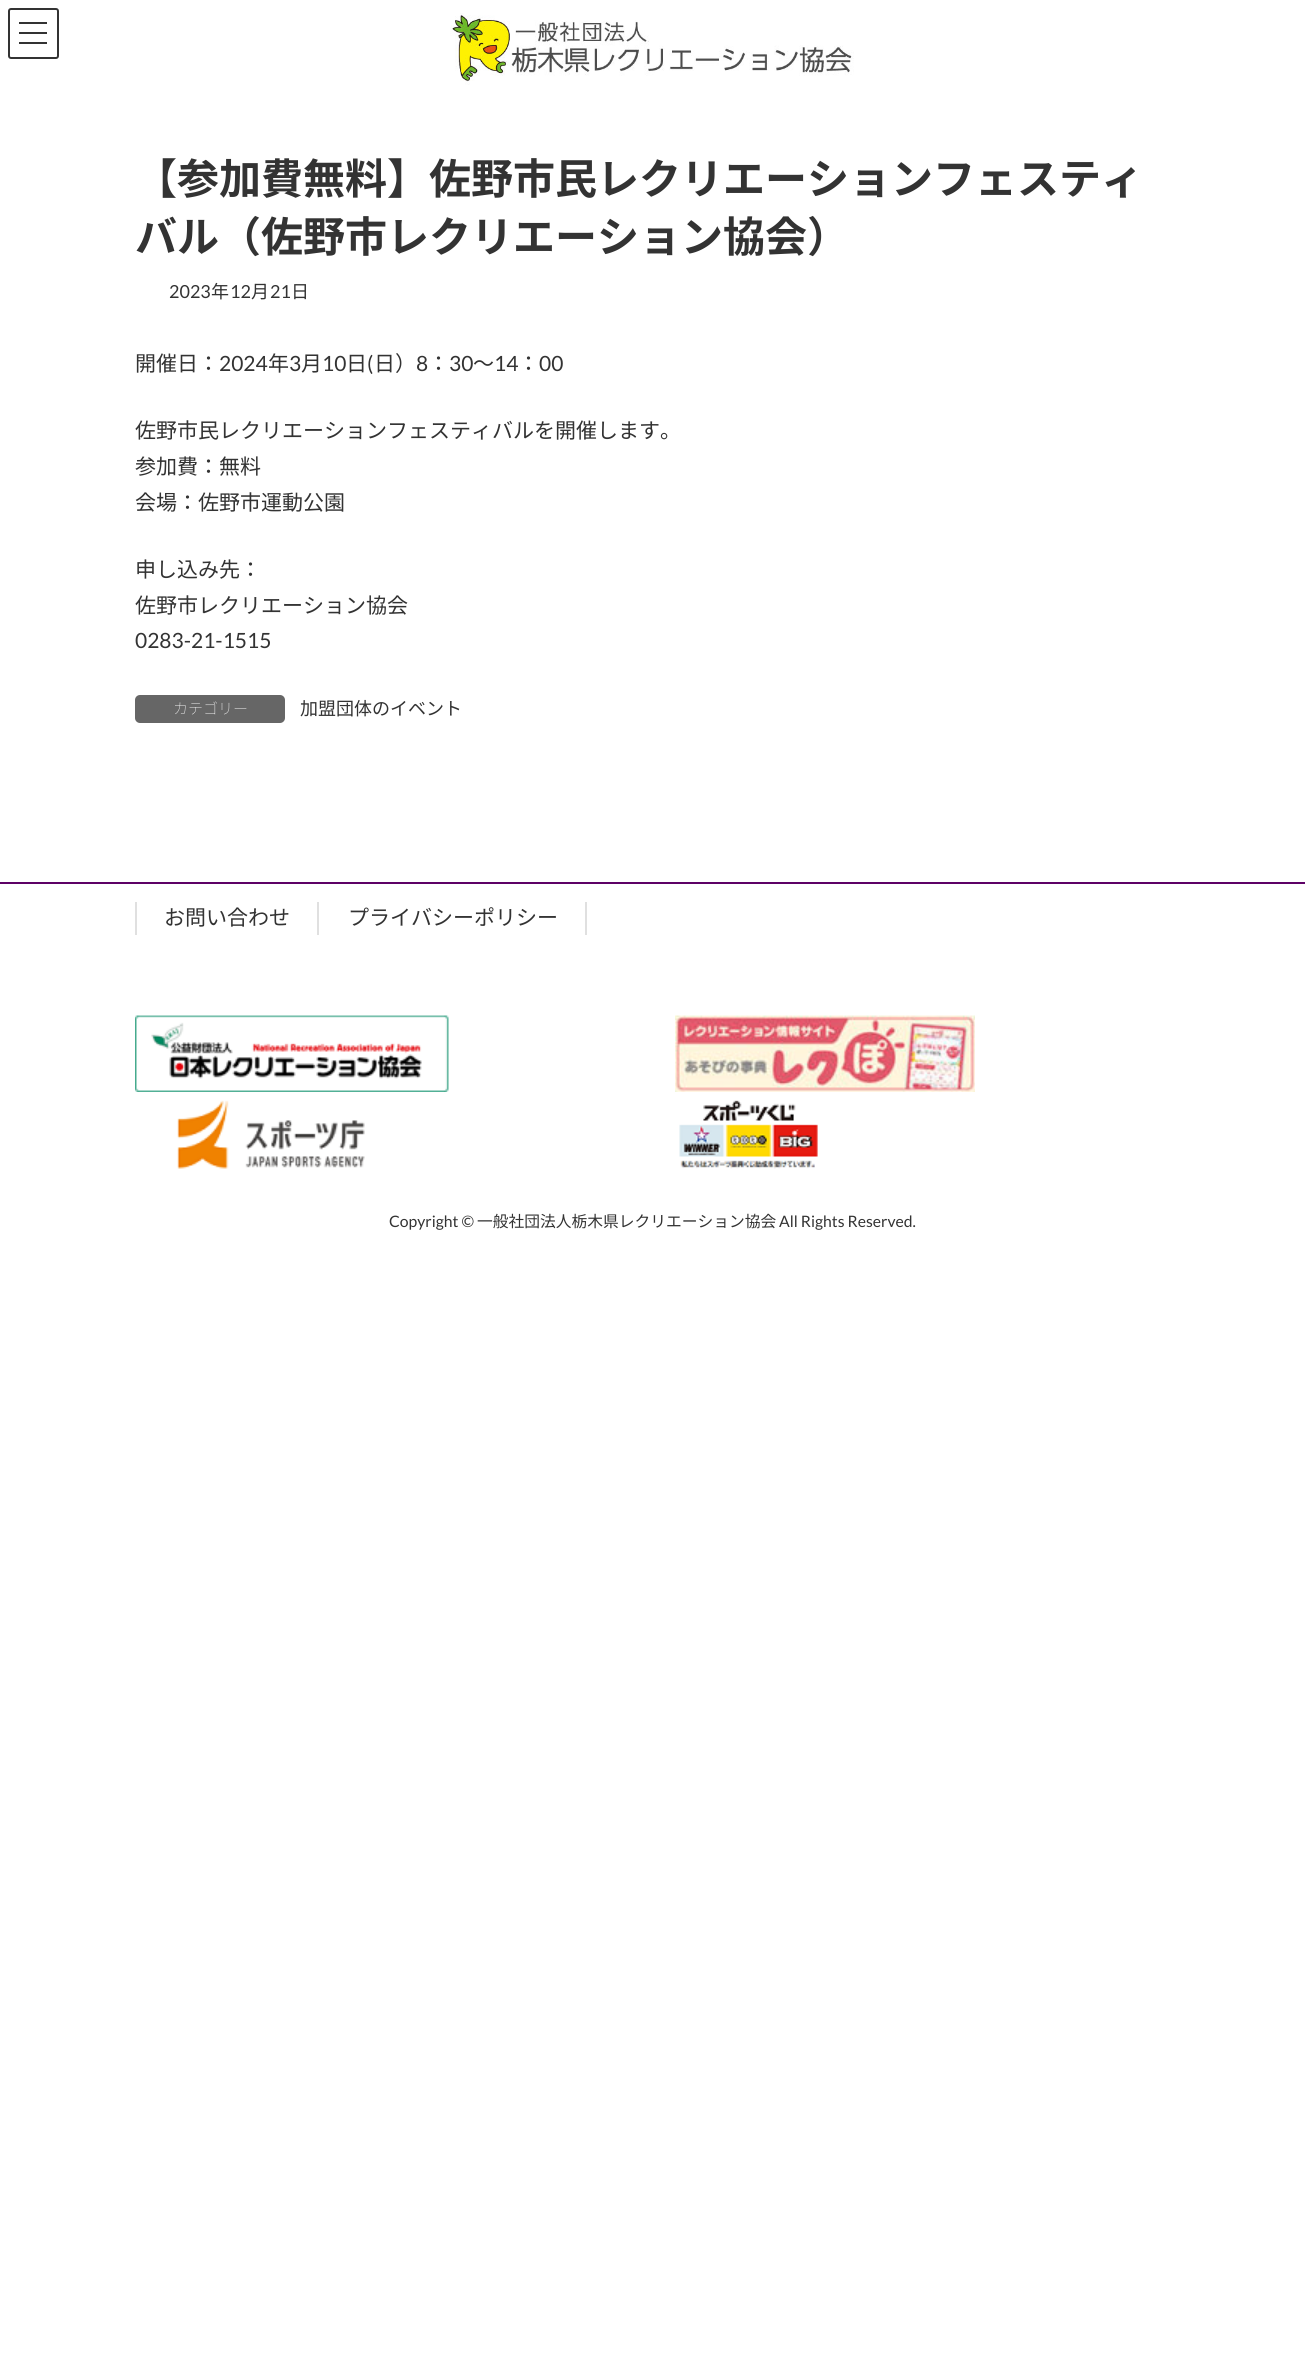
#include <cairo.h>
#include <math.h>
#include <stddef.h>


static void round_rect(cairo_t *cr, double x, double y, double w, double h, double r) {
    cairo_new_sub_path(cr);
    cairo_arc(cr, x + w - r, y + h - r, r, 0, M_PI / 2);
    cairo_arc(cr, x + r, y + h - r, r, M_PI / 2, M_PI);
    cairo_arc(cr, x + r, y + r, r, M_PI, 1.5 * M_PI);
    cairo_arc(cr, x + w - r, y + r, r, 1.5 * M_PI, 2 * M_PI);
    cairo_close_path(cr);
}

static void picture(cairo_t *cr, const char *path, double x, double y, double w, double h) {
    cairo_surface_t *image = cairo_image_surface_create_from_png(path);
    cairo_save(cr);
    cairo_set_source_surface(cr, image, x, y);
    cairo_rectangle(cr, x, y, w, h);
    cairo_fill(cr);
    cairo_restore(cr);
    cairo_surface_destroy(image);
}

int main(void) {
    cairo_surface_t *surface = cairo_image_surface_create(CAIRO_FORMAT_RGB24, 1305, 2374);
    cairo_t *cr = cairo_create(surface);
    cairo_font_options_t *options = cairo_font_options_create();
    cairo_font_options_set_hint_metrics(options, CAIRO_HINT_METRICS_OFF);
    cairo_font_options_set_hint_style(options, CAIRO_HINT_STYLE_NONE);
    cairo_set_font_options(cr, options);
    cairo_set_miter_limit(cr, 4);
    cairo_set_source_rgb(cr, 1, 1, 1);
    cairo_paint(cr);
    cairo_set_source_rgb(cr, 0.2, 0.2, 0.2);
    cairo_rectangle(cr, 19, 22, 28, 2);
    cairo_fill(cr);
    cairo_rectangle(cr, 19, 32, 28, 2);
    cairo_fill(cr);
    cairo_rectangle(cr, 19, 42, 28, 2);
    cairo_fill(cr);
    round_rect(cr, 9, 9, 49, 49, 2);
    cairo_stroke(cr);
    picture(cr, "img1.png", 450, 13, 404, 72);
    cairo_select_font_face(cr, "Noto Sans JP", CAIRO_FONT_SLANT_NORMAL, CAIRO_FONT_WEIGHT_BOLD);
    cairo_set_font_size(cr, 42);
    cairo_move_to(cr, 135, 194);
    cairo_show_text(cr, "【参加費無料】佐野市民レクリエーションフェスティ");
    cairo_move_to(cr, 135, 252);
    cairo_show_text(cr, "バル（佐野市レクリエーション協会）");
    cairo_select_font_face(cr, "Lato", CAIRO_FONT_SLANT_NORMAL, CAIRO_FONT_WEIGHT_NORMAL);
    cairo_set_font_size(cr, 18);
    cairo_move_to(cr, 169, 298);
    cairo_show_text(cr, "2023");
    cairo_select_font_face(cr, "Noto Sans JP", CAIRO_FONT_SLANT_NORMAL, CAIRO_FONT_WEIGHT_NORMAL);
    cairo_move_to(cr, 211, 298);
    cairo_show_text(cr, "年");
    cairo_select_font_face(cr, "Lato", CAIRO_FONT_SLANT_NORMAL, CAIRO_FONT_WEIGHT_NORMAL);
    cairo_move_to(cr, 230, 298);
    cairo_show_text(cr, "12");
    cairo_select_font_face(cr, "Noto Sans JP", CAIRO_FONT_SLANT_NORMAL, CAIRO_FONT_WEIGHT_NORMAL);
    cairo_move_to(cr, 251, 298);
    cairo_show_text(cr, "月");
    cairo_select_font_face(cr, "Lato", CAIRO_FONT_SLANT_NORMAL, CAIRO_FONT_WEIGHT_NORMAL);
    cairo_move_to(cr, 270, 298);
    cairo_show_text(cr, "21");
    cairo_select_font_face(cr, "Noto Sans JP", CAIRO_FONT_SLANT_NORMAL, CAIRO_FONT_WEIGHT_NORMAL);
    cairo_move_to(cr, 291, 298);
    cairo_show_text(cr, "日");
    cairo_set_font_size(cr, 21);
    cairo_move_to(cr, 135, 371);
    cairo_show_text(cr, "開催日：");
    cairo_select_font_face(cr, "Lato", CAIRO_FONT_SLANT_NORMAL, CAIRO_FONT_WEIGHT_NORMAL);
    cairo_move_to(cr, 219, 371);
    cairo_show_text(cr, "2024");
    cairo_select_font_face(cr, "Noto Sans JP", CAIRO_FONT_SLANT_NORMAL, CAIRO_FONT_WEIGHT_NORMAL);
    cairo_move_to(cr, 268, 371);
    cairo_show_text(cr, "年");
    cairo_select_font_face(cr, "Lato", CAIRO_FONT_SLANT_NORMAL, CAIRO_FONT_WEIGHT_NORMAL);
    cairo_move_to(cr, 289, 371);
    cairo_show_text(cr, "3");
    cairo_select_font_face(cr, "Noto Sans JP", CAIRO_FONT_SLANT_NORMAL, CAIRO_FONT_WEIGHT_NORMAL);
    cairo_move_to(cr, 301, 371);
    cairo_show_text(cr, "月");
    cairo_select_font_face(cr, "Lato", CAIRO_FONT_SLANT_NORMAL, CAIRO_FONT_WEIGHT_NORMAL);
    cairo_move_to(cr, 322, 371);
    cairo_show_text(cr, "10");
    cairo_select_font_face(cr, "Noto Sans JP", CAIRO_FONT_SLANT_NORMAL, CAIRO_FONT_WEIGHT_NORMAL);
    cairo_move_to(cr, 346, 371);
    cairo_show_text(cr, "日");
    cairo_select_font_face(cr, "Lato", CAIRO_FONT_SLANT_NORMAL, CAIRO_FONT_WEIGHT_NORMAL);
    cairo_move_to(cr, 367, 371);
    cairo_show_text(cr, "(");
    cairo_select_font_face(cr, "Noto Sans JP", CAIRO_FONT_SLANT_NORMAL, CAIRO_FONT_WEIGHT_NORMAL);
    cairo_move_to(cr, 374, 371);
    cairo_show_text(cr, "日）");
    cairo_select_font_face(cr, "Lato", CAIRO_FONT_SLANT_NORMAL, CAIRO_FONT_WEIGHT_NORMAL);
    cairo_move_to(cr, 416, 371);
    cairo_show_text(cr, "8");
    cairo_select_font_face(cr, "Noto Sans JP", CAIRO_FONT_SLANT_NORMAL, CAIRO_FONT_WEIGHT_NORMAL);
    cairo_move_to(cr, 428, 371);
    cairo_show_text(cr, "：");
    cairo_select_font_face(cr, "Lato", CAIRO_FONT_SLANT_NORMAL, CAIRO_FONT_WEIGHT_NORMAL);
    cairo_move_to(cr, 449, 371);
    cairo_show_text(cr, "30");
    cairo_select_font_face(cr, "Noto Sans JP", CAIRO_FONT_SLANT_NORMAL, CAIRO_FONT_WEIGHT_NORMAL);
    cairo_move_to(cr, 473, 371);
    cairo_show_text(cr, "～");
    cairo_select_font_face(cr, "Lato", CAIRO_FONT_SLANT_NORMAL, CAIRO_FONT_WEIGHT_NORMAL);
    cairo_move_to(cr, 494, 371);
    cairo_show_text(cr, "14");
    cairo_select_font_face(cr, "Noto Sans JP", CAIRO_FONT_SLANT_NORMAL, CAIRO_FONT_WEIGHT_NORMAL);
    cairo_move_to(cr, 518, 371);
    cairo_show_text(cr, "：");
    cairo_select_font_face(cr, "Lato", CAIRO_FONT_SLANT_NORMAL, CAIRO_FONT_WEIGHT_NORMAL);
    cairo_move_to(cr, 539, 371);
    cairo_show_text(cr, "00");
    cairo_select_font_face(cr, "Noto Sans JP", CAIRO_FONT_SLANT_NORMAL, CAIRO_FONT_WEIGHT_NORMAL);
    cairo_move_to(cr, 135, 438);
    cairo_show_text(cr, "佐野市民レクリエーションフェスティバルを開催します。");
    cairo_move_to(cr, 135, 474);
    cairo_show_text(cr, "参加費：無料");
    cairo_move_to(cr, 135, 510);
    cairo_show_text(cr, "会場：佐野市運動公園");
    cairo_move_to(cr, 135, 577);
    cairo_show_text(cr, "申し込み先：");
    cairo_move_to(cr, 135, 613);
    cairo_show_text(cr, "佐野市レクリエーション協会");
    cairo_select_font_face(cr, "Lato", CAIRO_FONT_SLANT_NORMAL, CAIRO_FONT_WEIGHT_NORMAL);
    cairo_move_to(cr, 135, 648);
    cairo_show_text(cr, "0283-21-1515");
    cairo_set_source_rgb(cr, 0.4, 0.4, 0.4);
    round_rect(cr, 135, 695, 150, 28, 5);
    cairo_fill(cr);
    cairo_select_font_face(cr, "Noto Sans JP Thin", CAIRO_FONT_SLANT_NORMAL, CAIRO_FONT_WEIGHT_NORMAL);
    cairo_set_font_size(cr, 15);
    cairo_set_source_rgb(cr, 1, 1, 1);
    cairo_move_to(cr, 173, 714);
    cairo_show_text(cr, "カテゴリー");
    cairo_select_font_face(cr, "Noto Sans JP", CAIRO_FONT_SLANT_NORMAL, CAIRO_FONT_WEIGHT_NORMAL);
    cairo_set_font_size(cr, 18);
    cairo_set_source_rgb(cr, 0.2, 0.2, 0.2);
    cairo_move_to(cr, 300, 715);
    cairo_show_text(cr, "加盟団体のイベント");
    cairo_set_source_rgb(cr, 0.365, 0.004, 0.4);
    cairo_rectangle(cr, 0, 882, 1305, 2);
    cairo_fill(cr);
    cairo_set_source_rgb(cr, 0.878, 0.878, 0.878);
    cairo_rectangle(cr, 317, 902, 2, 33);
    cairo_fill(cr);
    cairo_rectangle(cr, 135, 902, 2, 33);
    cairo_fill(cr);
    cairo_set_font_size(cr, 21);
    cairo_set_source_rgb(cr, 0.2, 0.2, 0.2);
    cairo_move_to(cr, 164, 925);
    cairo_show_text(cr, "お問い合わせ");
    cairo_set_source_rgb(cr, 0.878, 0.878, 0.878);
    cairo_rectangle(cr, 585, 902, 2, 33);
    cairo_fill(cr);
    cairo_set_source_rgb(cr, 0.2, 0.2, 0.2);
    cairo_move_to(cr, 348, 925);
    cairo_show_text(cr, "プライバシーポリシー");
    picture(cr, "img2.png", 135, 1015, 314, 77);
    picture(cr, "img3.png", 675, 1015, 300, 77);
    picture(cr, "img4.png", 177, 1100, 188, 69);
    picture(cr, "img5.png", 679, 1100, 139, 69);
    cairo_select_font_face(cr, "Lato", CAIRO_FONT_SLANT_NORMAL, CAIRO_FONT_WEIGHT_NORMAL);
    cairo_set_font_size(cr, 15.75);
    cairo_move_to(cr, 389, 1227);
    cairo_show_text(cr, "Copyright ©");
    cairo_select_font_face(cr, "Noto Sans JP", CAIRO_FONT_SLANT_NORMAL, CAIRO_FONT_WEIGHT_NORMAL);
    cairo_move_to(cr, 477, 1227);
    cairo_show_text(cr, "一般社団法人栃木県レクリエーション協会");
    cairo_select_font_face(cr, "Lato", CAIRO_FONT_SLANT_NORMAL, CAIRO_FONT_WEIGHT_NORMAL);
    cairo_move_to(cr, 779, 1227);
    cairo_show_text(cr, "All Rights Reserved.");
    cairo_surface_write_to_png(surface, "page.png");
    cairo_font_options_destroy(options);
    cairo_destroy(cr);
    cairo_surface_destroy(surface);
    return 0;
}
